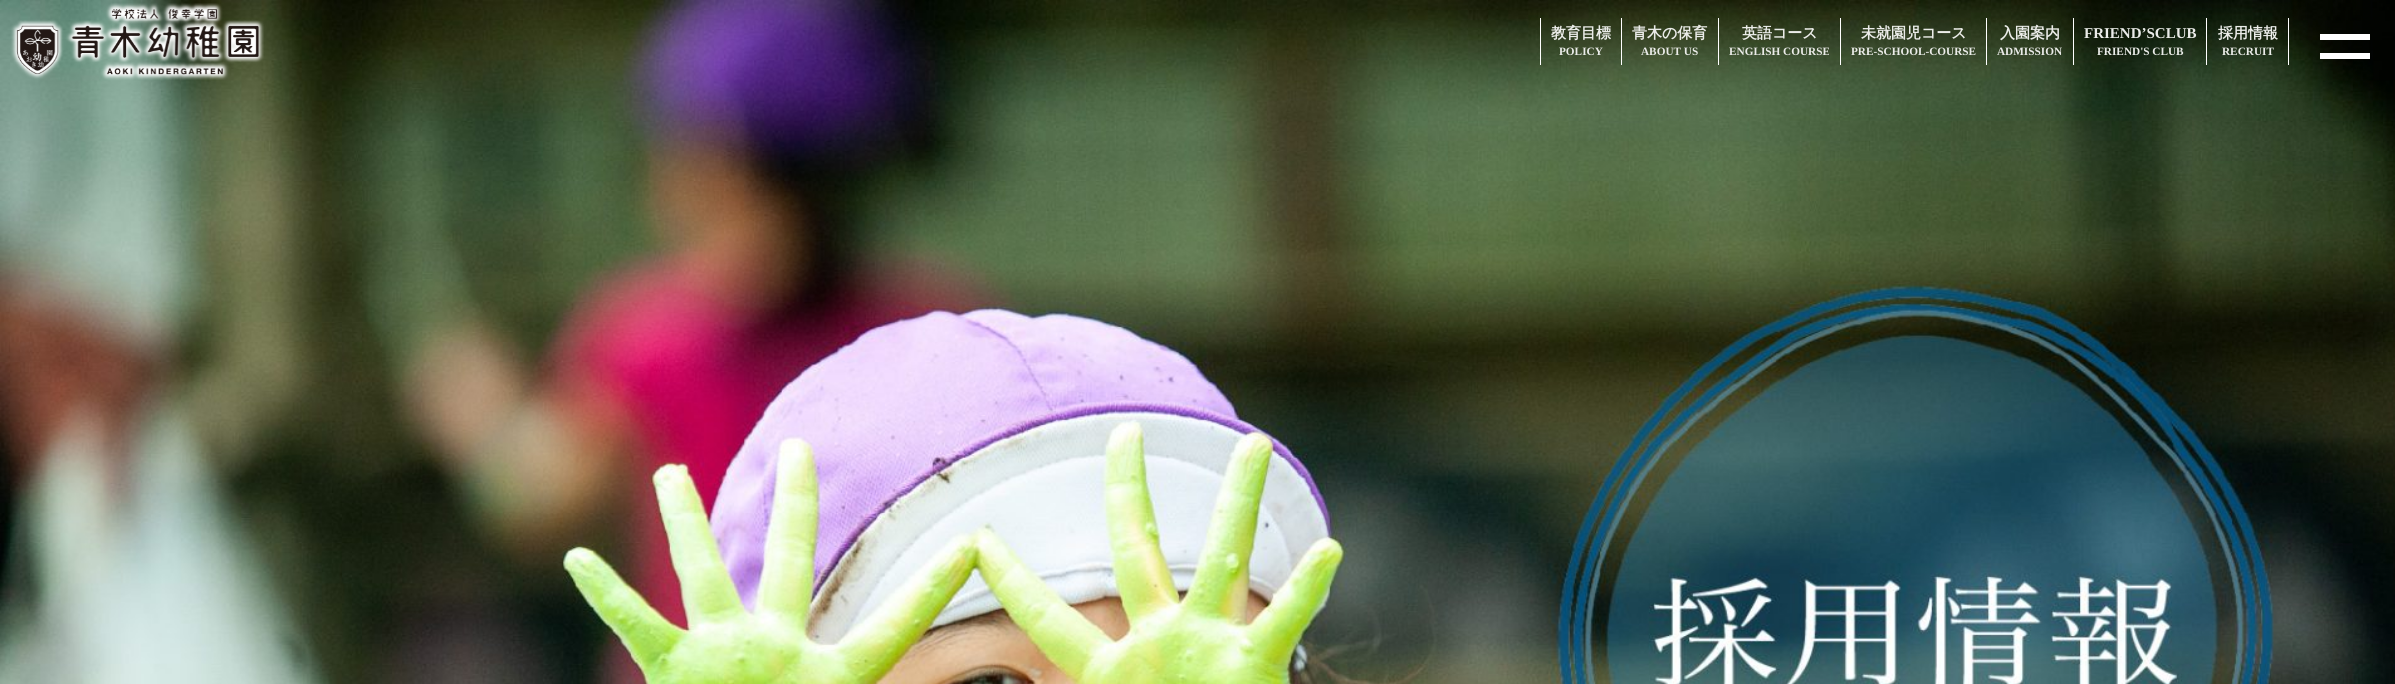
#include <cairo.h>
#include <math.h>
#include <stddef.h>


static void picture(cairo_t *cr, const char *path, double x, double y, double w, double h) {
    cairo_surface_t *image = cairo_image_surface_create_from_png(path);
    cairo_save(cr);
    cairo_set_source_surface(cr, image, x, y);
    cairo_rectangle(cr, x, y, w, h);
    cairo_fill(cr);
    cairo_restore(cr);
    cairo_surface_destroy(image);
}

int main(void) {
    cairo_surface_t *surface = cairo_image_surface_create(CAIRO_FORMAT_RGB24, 2395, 684);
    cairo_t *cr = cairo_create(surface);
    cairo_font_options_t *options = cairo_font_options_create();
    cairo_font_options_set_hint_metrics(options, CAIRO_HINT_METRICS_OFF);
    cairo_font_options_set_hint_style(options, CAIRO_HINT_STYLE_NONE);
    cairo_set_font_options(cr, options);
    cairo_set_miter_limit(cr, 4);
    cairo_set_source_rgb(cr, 1, 1, 1);
    cairo_paint(cr);
    picture(cr, "img1.png", 0, 0, 2395, 684);
    picture(cr, "img2.png", 11, 3, 253, 77);
    cairo_set_source_rgb(cr, 1, 1, 1);
    cairo_rectangle(cr, 2288, 18, 1, 47);
    cairo_fill(cr);
    cairo_rectangle(cr, 1540, 18, 1, 47);
    cairo_fill(cr);
    cairo_select_font_face(cr, "WenQuanYi Zen Hei", CAIRO_FONT_SLANT_NORMAL, CAIRO_FONT_WEIGHT_BOLD);
    cairo_set_font_size(cr, 15);
    cairo_set_source_rgb(cr, 0.918, 0.925, 0.914);
    cairo_move_to(cr, 1551, 38);
    cairo_show_text(cr, "教育目標");
    cairo_select_font_face(cr, "Liberation Serif", CAIRO_FONT_SLANT_NORMAL, CAIRO_FONT_WEIGHT_BOLD);
    cairo_set_font_size(cr, 11.25);
    cairo_move_to(cr, 1559, 55);
    cairo_show_text(cr, "POLICY");
    cairo_set_source_rgb(cr, 1, 1, 1);
    cairo_rectangle(cr, 1621, 18, 1, 47);
    cairo_fill(cr);
    cairo_select_font_face(cr, "WenQuanYi Zen Hei", CAIRO_FONT_SLANT_NORMAL, CAIRO_FONT_WEIGHT_BOLD);
    cairo_set_font_size(cr, 15);
    cairo_set_source_rgb(cr, 0.918, 0.925, 0.914);
    cairo_move_to(cr, 1632, 38);
    cairo_show_text(cr, "青木の保育");
    cairo_select_font_face(cr, "Liberation Serif", CAIRO_FONT_SLANT_NORMAL, CAIRO_FONT_WEIGHT_BOLD);
    cairo_set_font_size(cr, 11.25);
    cairo_move_to(cr, 1641, 55);
    cairo_show_text(cr, "ABOUT US");
    cairo_set_source_rgb(cr, 1, 1, 1);
    cairo_rectangle(cr, 1718, 18, 1, 47);
    cairo_fill(cr);
    cairo_select_font_face(cr, "WenQuanYi Zen Hei", CAIRO_FONT_SLANT_NORMAL, CAIRO_FONT_WEIGHT_BOLD);
    cairo_set_font_size(cr, 15);
    cairo_set_source_rgb(cr, 0.918, 0.925, 0.914);
    cairo_move_to(cr, 1742, 38);
    cairo_show_text(cr, "英語コース");
    cairo_select_font_face(cr, "Liberation Serif", CAIRO_FONT_SLANT_NORMAL, CAIRO_FONT_WEIGHT_BOLD);
    cairo_set_font_size(cr, 11.25);
    cairo_move_to(cr, 1729, 55);
    cairo_show_text(cr, "ENGLISH COURSE");
    cairo_set_source_rgb(cr, 1, 1, 1);
    cairo_rectangle(cr, 1840, 18, 1, 47);
    cairo_fill(cr);
    cairo_select_font_face(cr, "WenQuanYi Zen Hei", CAIRO_FONT_SLANT_NORMAL, CAIRO_FONT_WEIGHT_BOLD);
    cairo_set_font_size(cr, 15);
    cairo_set_source_rgb(cr, 0.918, 0.925, 0.914);
    cairo_move_to(cr, 1861, 38);
    cairo_show_text(cr, "未就園児コース");
    cairo_select_font_face(cr, "Liberation Serif", CAIRO_FONT_SLANT_NORMAL, CAIRO_FONT_WEIGHT_BOLD);
    cairo_set_font_size(cr, 11.25);
    cairo_move_to(cr, 1851, 55);
    cairo_show_text(cr, "PRE-SCHOOL-COURSE");
    cairo_set_source_rgb(cr, 1, 1, 1);
    cairo_rectangle(cr, 1986, 18, 1, 47);
    cairo_fill(cr);
    cairo_select_font_face(cr, "WenQuanYi Zen Hei", CAIRO_FONT_SLANT_NORMAL, CAIRO_FONT_WEIGHT_BOLD);
    cairo_set_font_size(cr, 15);
    cairo_set_source_rgb(cr, 0.918, 0.925, 0.914);
    cairo_move_to(cr, 2000, 38);
    cairo_show_text(cr, "入園案内");
    cairo_select_font_face(cr, "Liberation Serif", CAIRO_FONT_SLANT_NORMAL, CAIRO_FONT_WEIGHT_BOLD);
    cairo_set_font_size(cr, 11.25);
    cairo_move_to(cr, 1997, 55);
    cairo_show_text(cr, "ADMISSION");
    cairo_set_source_rgb(cr, 1, 1, 1);
    cairo_rectangle(cr, 2073, 18, 1, 47);
    cairo_fill(cr);
    cairo_set_font_size(cr, 15);
    cairo_set_source_rgb(cr, 0.918, 0.925, 0.914);
    cairo_move_to(cr, 2084, 38);
    cairo_show_text(cr, "FRIEND’SCLUB");
    cairo_set_font_size(cr, 11.25);
    cairo_move_to(cr, 2097, 55);
    cairo_show_text(cr, "FRIEND'S CLUB");
    cairo_set_source_rgb(cr, 1, 1, 1);
    cairo_rectangle(cr, 2206, 18, 1, 47);
    cairo_fill(cr);
    cairo_select_font_face(cr, "WenQuanYi Zen Hei", CAIRO_FONT_SLANT_NORMAL, CAIRO_FONT_WEIGHT_BOLD);
    cairo_set_font_size(cr, 15);
    cairo_set_source_rgb(cr, 0.918, 0.925, 0.914);
    cairo_move_to(cr, 2218, 38);
    cairo_show_text(cr, "採用情報");
    cairo_select_font_face(cr, "Liberation Serif", CAIRO_FONT_SLANT_NORMAL, CAIRO_FONT_WEIGHT_BOLD);
    cairo_set_font_size(cr, 11.25);
    cairo_move_to(cr, 2222, 55);
    cairo_show_text(cr, "RECRUIT");
    cairo_set_source_rgb(cr, 1, 1, 1);
    cairo_rectangle(cr, 2320, 34, 50, 6);
    cairo_fill(cr);
    cairo_rectangle(cr, 2320, 53, 50, 6);
    cairo_fill(cr);
    cairo_surface_write_to_png(surface, "page.png");
    cairo_font_options_destroy(options);
    cairo_destroy(cr);
    cairo_surface_destroy(surface);
    return 0;
}
